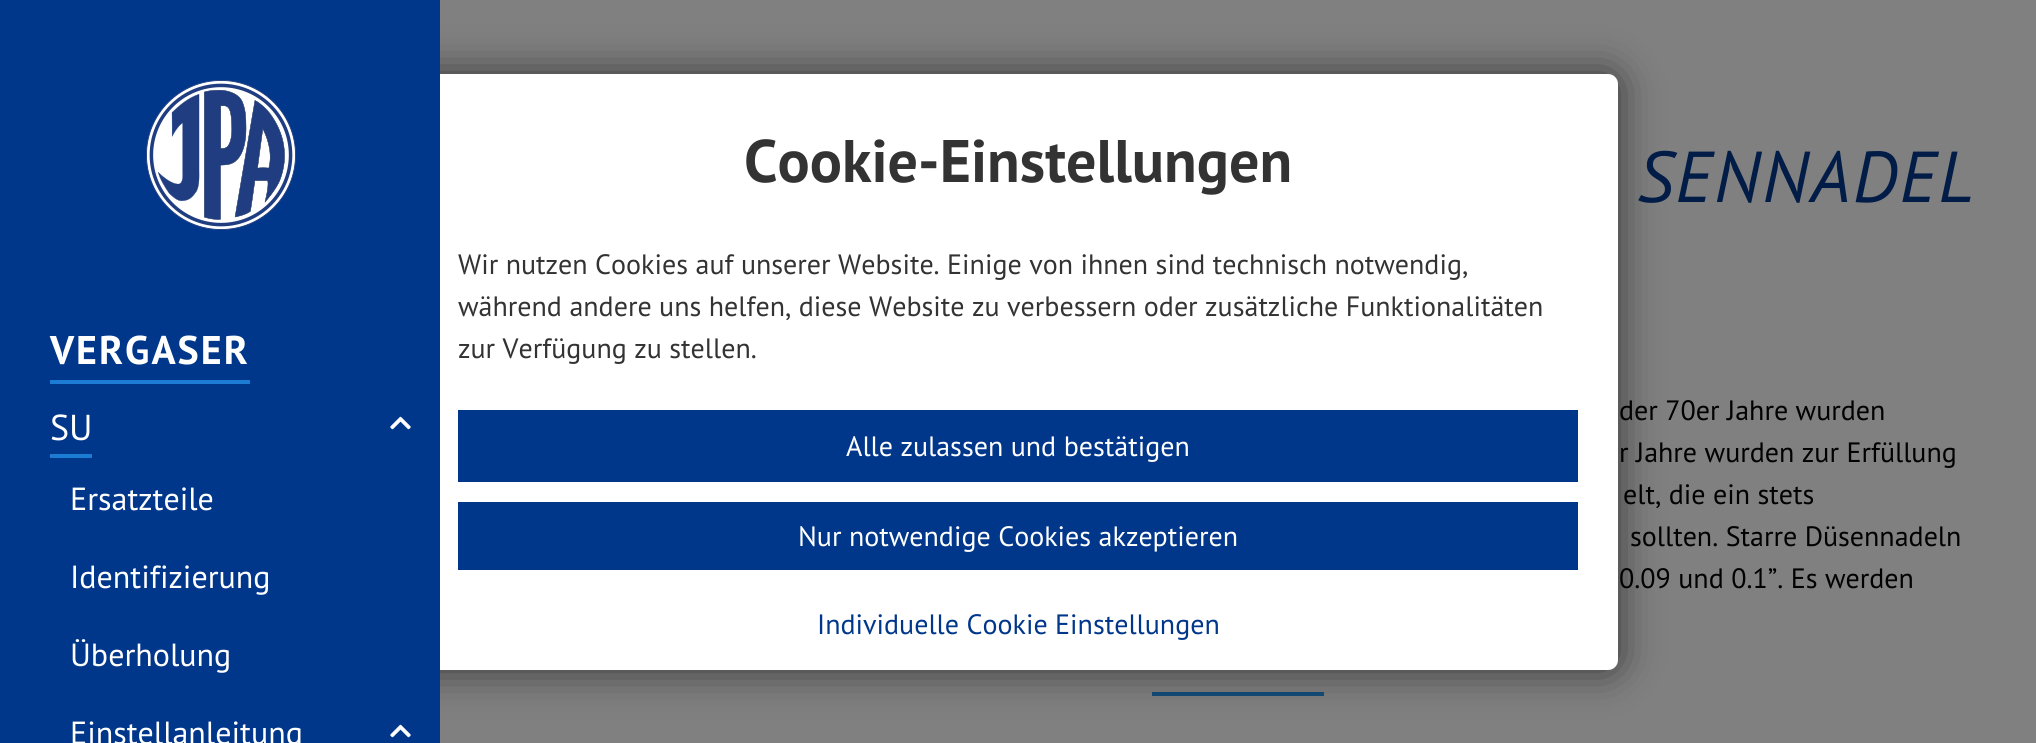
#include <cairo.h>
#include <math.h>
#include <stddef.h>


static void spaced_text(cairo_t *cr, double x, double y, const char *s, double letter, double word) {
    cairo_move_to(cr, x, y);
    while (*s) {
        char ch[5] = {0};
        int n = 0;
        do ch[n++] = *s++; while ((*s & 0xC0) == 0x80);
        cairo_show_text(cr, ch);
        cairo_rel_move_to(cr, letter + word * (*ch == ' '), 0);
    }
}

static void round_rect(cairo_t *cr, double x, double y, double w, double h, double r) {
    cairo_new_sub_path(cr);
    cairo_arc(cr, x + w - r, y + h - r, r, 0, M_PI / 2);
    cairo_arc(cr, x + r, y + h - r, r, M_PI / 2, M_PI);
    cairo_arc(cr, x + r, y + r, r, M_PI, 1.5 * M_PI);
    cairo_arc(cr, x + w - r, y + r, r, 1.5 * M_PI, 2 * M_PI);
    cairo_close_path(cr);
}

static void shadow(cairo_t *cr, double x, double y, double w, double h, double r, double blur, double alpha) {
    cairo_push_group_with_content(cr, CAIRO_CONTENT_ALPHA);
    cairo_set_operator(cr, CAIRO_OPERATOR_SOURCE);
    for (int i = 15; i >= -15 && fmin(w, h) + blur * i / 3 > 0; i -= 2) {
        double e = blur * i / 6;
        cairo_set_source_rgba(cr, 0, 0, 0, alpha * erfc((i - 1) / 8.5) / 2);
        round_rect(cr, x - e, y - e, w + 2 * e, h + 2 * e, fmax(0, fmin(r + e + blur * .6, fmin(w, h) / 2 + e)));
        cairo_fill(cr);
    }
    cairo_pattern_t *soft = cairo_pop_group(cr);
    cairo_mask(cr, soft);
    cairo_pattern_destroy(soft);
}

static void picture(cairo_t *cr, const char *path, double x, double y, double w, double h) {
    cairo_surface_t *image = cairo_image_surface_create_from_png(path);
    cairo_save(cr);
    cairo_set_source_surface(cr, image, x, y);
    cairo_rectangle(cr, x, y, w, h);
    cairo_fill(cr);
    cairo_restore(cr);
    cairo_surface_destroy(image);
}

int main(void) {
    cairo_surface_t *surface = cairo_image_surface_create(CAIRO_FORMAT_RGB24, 2036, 743);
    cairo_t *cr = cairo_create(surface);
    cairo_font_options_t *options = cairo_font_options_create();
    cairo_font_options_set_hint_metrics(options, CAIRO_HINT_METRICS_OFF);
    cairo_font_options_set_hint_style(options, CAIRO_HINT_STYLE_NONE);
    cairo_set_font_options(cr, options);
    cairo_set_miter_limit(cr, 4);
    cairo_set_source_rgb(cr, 0.502, 0.502, 0.502);
    cairo_paint(cr);
    cairo_set_source_rgb(cr, 0.078, 0.302, 0.475);
    cairo_rectangle(cr, 1152, 692, 172, 4);
    cairo_fill(cr);
    cairo_set_source_rgb(cr, 0, 0, 0);
    shadow(cr, 418, 74, 1200, 596, 10, 20, 0.6);
    cairo_set_source_rgb(cr, 1, 1, 1);
    round_rect(cr, 418, 74, 1200, 596, 10);
    cairo_fill(cr);
    cairo_select_font_face(cr, "PT Sans", CAIRO_FONT_SLANT_NORMAL, CAIRO_FONT_WEIGHT_BOLD);
    cairo_set_font_size(cr, 60);
    cairo_set_source_rgb(cr, 0.2, 0.2, 0.2);
    cairo_move_to(cr, 744, 182);
    cairo_show_text(cr, "Cookie-Einstellungen");
    cairo_select_font_face(cr, "PT Sans", CAIRO_FONT_SLANT_NORMAL, CAIRO_FONT_WEIGHT_NORMAL);
    cairo_set_font_size(cr, 28);
    cairo_move_to(cr, 458, 274);
    cairo_show_text(cr, "Wir nutzen Cookies auf unserer Website. Einige von ihnen sind technisch notwendig,");
    cairo_move_to(cr, 458, 316);
    cairo_show_text(cr, "während andere uns helfen, diese Website zu verbessern oder zusätzliche Funktionalitäten");
    cairo_move_to(cr, 458, 358);
    cairo_show_text(cr, "zur Verfügung zu stellen.");
    cairo_set_source_rgb(cr, 0.004, 0.216, 0.545);
    cairo_rectangle(cr, 458, 410, 1120, 72);
    cairo_fill(cr);
    cairo_set_source_rgb(cr, 1, 1, 1);
    cairo_move_to(cr, 846, 456);
    cairo_show_text(cr, "Alle zulassen und bestätigen");
    cairo_set_source_rgb(cr, 0.004, 0.216, 0.545);
    cairo_rectangle(cr, 458, 502, 1120, 68);
    cairo_fill(cr);
    cairo_set_source_rgb(cr, 1, 1, 1);
    cairo_move_to(cr, 798, 546);
    cairo_show_text(cr, "Nur notwendige Cookies akzeptieren");
    cairo_set_source_rgb(cr, 0.004, 0.216, 0.545);
    cairo_move_to(cr, 817, 634);
    cairo_show_text(cr, "Individuelle Cookie Einstellungen");
    cairo_rectangle(cr, 0, 0, 440, 743);
    cairo_fill(cr);
    picture(cr, "img1.png", 146, 80, 150, 150);
    cairo_select_font_face(cr, "PT Sans", CAIRO_FONT_SLANT_NORMAL, CAIRO_FONT_WEIGHT_BOLD);
    cairo_set_font_size(cr, 40);
    cairo_set_source_rgb(cr, 1, 1, 1);
    spaced_text(cr, 50, 364, "VERGASER", 2, 0);
    cairo_set_source_rgb(cr, 0.11, 0.486, 0.827);
    cairo_rectangle(cr, 50, 380, 200, 4);
    cairo_fill(cr);
    cairo_select_font_face(cr, "PT Sans", CAIRO_FONT_SLANT_NORMAL, CAIRO_FONT_WEIGHT_NORMAL);
    cairo_set_font_size(cr, 36);
    cairo_set_source_rgb(cr, 1, 1, 1);
    cairo_move_to(cr, 50, 440);
    cairo_show_text(cr, "SU");
    cairo_set_source_rgb(cr, 0.11, 0.486, 0.827);
    cairo_rectangle(cr, 50, 454, 42, 4);
    cairo_fill(cr);
    picture(cr, "img2.png", 390, 416, 21, 14);
    cairo_set_font_size(cr, 32);
    cairo_set_source_rgb(cr, 1, 1, 1);
    cairo_move_to(cr, 70, 510);
    cairo_show_text(cr, "Ersatzteile");
    cairo_move_to(cr, 70, 588);
    cairo_show_text(cr, "Identifizierung");
    cairo_move_to(cr, 70, 666);
    cairo_show_text(cr, "Überholung");
    cairo_move_to(cr, 70, 744);
    cairo_show_text(cr, "Einstellanleitung");
    picture(cr, "img2.png", 390, 724, 21, 14);
    cairo_select_font_face(cr, "PT Sans", CAIRO_FONT_SLANT_ITALIC, CAIRO_FONT_WEIGHT_NORMAL);
    cairo_set_font_size(cr, 72);
    cairo_set_source_rgb(cr, 0.004, 0.11, 0.275);
    spaced_text(cr, 1637, 202, "SENNADEL", 2, 0);
    cairo_select_font_face(cr, "PT Sans", CAIRO_FONT_SLANT_NORMAL, CAIRO_FONT_WEIGHT_NORMAL);
    cairo_set_font_size(cr, 28);
    cairo_set_source_rgb(cr, 0.004, 0.004, 0.004);
    cairo_move_to(cr, 1619, 420);
    cairo_show_text(cr, "der 70er Jahre wurden");
    cairo_move_to(cr, 1619, 462);
    cairo_show_text(cr, "r Jahre wurden zur Erfüllung");
    cairo_move_to(cr, 1623, 504);
    cairo_show_text(cr, "elt, die ein stets");
    cairo_move_to(cr, 1630, 546);
    cairo_show_text(cr, "sollten. Starre Düsennadeln");
    cairo_move_to(cr, 1619, 588);
    cairo_show_text(cr, "0.09 und 0.1”. Es werden");
    cairo_surface_write_to_png(surface, "page.png");
    cairo_font_options_destroy(options);
    cairo_destroy(cr);
    cairo_surface_destroy(surface);
    return 0;
}
